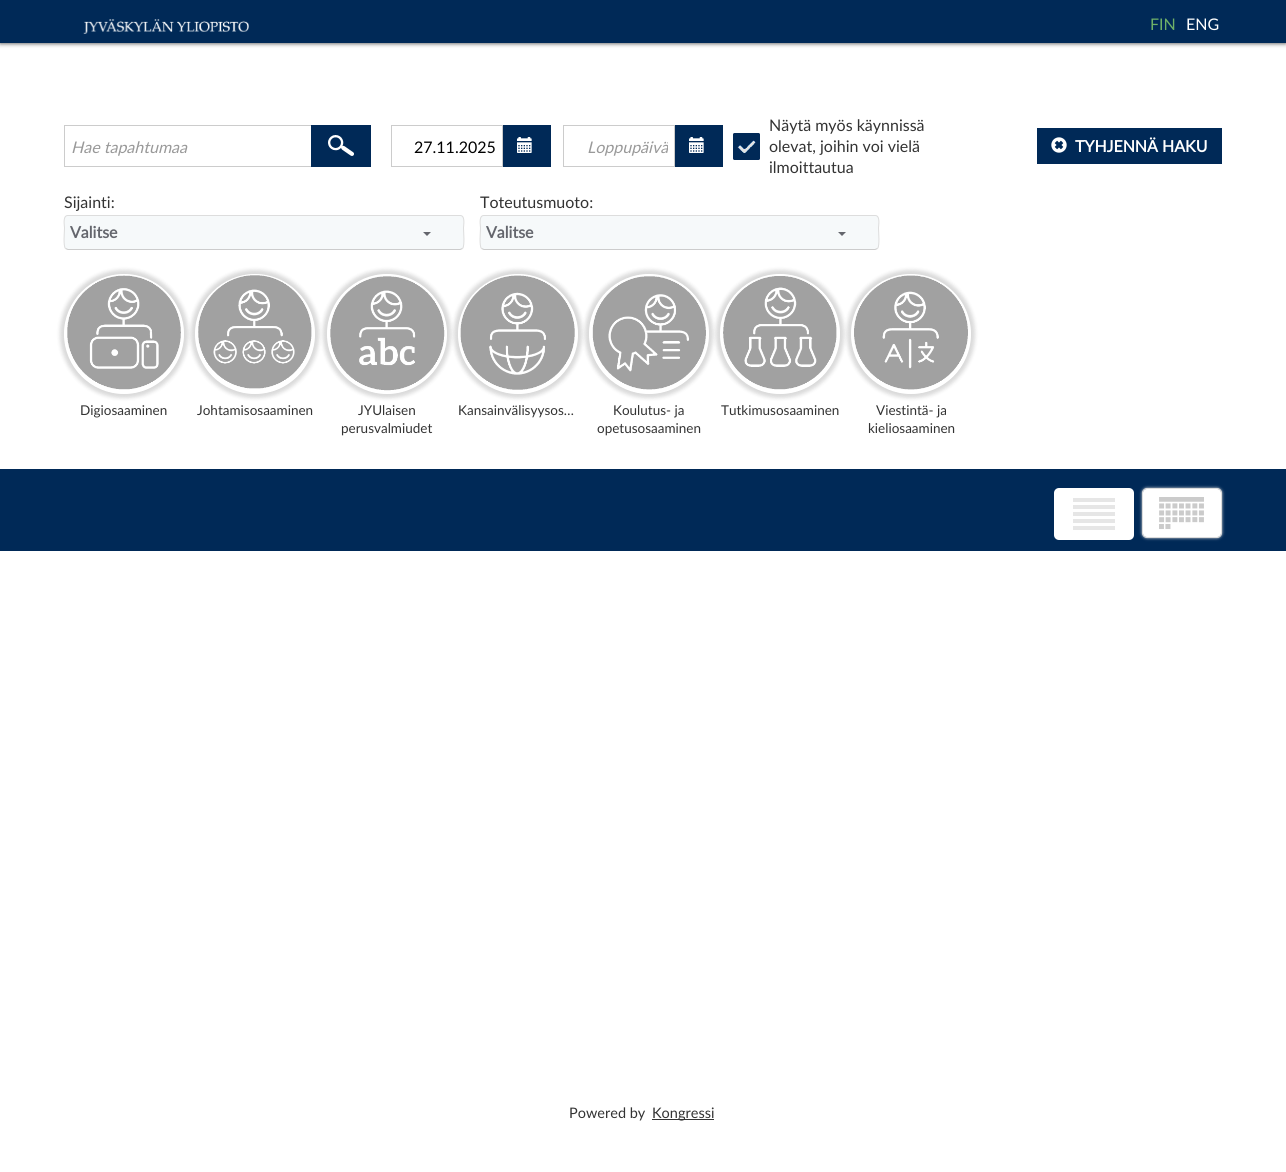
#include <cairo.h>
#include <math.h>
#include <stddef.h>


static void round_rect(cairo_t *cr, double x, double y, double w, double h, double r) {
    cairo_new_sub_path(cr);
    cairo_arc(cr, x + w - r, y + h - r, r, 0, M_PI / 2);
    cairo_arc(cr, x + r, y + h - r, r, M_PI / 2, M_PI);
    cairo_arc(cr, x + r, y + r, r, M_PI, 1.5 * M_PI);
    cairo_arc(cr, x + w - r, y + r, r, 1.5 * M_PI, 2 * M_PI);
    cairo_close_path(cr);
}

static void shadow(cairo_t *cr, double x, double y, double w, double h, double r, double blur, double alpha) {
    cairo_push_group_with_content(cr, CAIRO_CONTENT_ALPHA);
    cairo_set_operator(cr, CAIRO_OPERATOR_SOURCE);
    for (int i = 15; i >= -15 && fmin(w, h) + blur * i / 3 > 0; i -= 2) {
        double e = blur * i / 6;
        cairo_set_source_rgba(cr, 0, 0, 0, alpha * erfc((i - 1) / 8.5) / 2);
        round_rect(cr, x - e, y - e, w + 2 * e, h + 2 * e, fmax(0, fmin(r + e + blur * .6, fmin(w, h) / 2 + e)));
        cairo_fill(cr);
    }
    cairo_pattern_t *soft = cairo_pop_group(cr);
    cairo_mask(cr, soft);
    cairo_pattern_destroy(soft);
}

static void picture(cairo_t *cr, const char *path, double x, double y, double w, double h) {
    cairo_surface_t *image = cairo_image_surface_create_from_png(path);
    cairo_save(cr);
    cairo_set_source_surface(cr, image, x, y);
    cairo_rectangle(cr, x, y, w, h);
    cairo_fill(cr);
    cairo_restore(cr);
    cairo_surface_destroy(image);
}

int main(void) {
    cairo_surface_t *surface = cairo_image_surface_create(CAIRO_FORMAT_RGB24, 1286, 1172);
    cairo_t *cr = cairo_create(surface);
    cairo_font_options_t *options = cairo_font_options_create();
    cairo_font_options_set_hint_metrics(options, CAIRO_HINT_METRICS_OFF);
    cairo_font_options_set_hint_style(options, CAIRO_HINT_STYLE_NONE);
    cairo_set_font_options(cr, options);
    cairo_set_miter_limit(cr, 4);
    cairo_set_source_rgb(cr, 1, 1, 1);
    cairo_paint(cr);
    cairo_set_source_rgb(cr, 0.2, 0.2, 0.2);
    shadow(cr, 0, 0, 1286, 43, 0, 2.5, 1);
    cairo_set_source_rgb(cr, 0, 0.161, 0.341);
    cairo_rectangle(cr, 0, 0, 1286, 43);
    cairo_fill(cr);
    picture(cr, "img1.png", 83, 19, 166, 15);
    cairo_select_font_face(cr, "Lato", CAIRO_FONT_SLANT_NORMAL, CAIRO_FONT_WEIGHT_NORMAL);
    cairo_set_font_size(cr, 16);
    cairo_set_source_rgb(cr, 0.431, 0.69, 0.408);
    cairo_move_to(cr, 1150, 30);
    cairo_show_text(cr, "FIN");
    cairo_set_source_rgb(cr, 1, 1, 1);
    cairo_move_to(cr, 1186, 30);
    cairo_show_text(cr, "ENG");
    cairo_rectangle(cr, 64.5, 125.5, 251, 41);
    cairo_set_source_rgb(cr, 0.8, 0.8, 0.8);
    cairo_set_line_width(cr, 1);
    cairo_stroke(cr);
    cairo_select_font_face(cr, "Lato", CAIRO_FONT_SLANT_ITALIC, CAIRO_FONT_WEIGHT_NORMAL);
    cairo_set_source_rgb(cr, 0.6, 0.6, 0.6);
    cairo_move_to(cr, 71, 153);
    cairo_show_text(cr, "Hae tapahtumaa");
    cairo_set_source_rgb(cr, 0, 0.161, 0.341);
    cairo_rectangle(cr, 311, 125, 60, 42);
    cairo_fill(cr);
    picture(cr, "img2.png", 328, 135, 26, 21);
    cairo_rectangle(cr, 391.5, 125.5, 111, 41);
    cairo_set_source_rgb(cr, 0.8, 0.8, 0.8);
    cairo_stroke(cr);
    cairo_select_font_face(cr, "Lato", CAIRO_FONT_SLANT_NORMAL, CAIRO_FONT_WEIGHT_NORMAL);
    cairo_set_source_rgb(cr, 0, 0, 0);
    cairo_move_to(cr, 414, 153);
    cairo_show_text(cr, "27.11.2025");
    cairo_set_source_rgb(cr, 0, 0.161, 0.341);
    cairo_rectangle(cr, 503, 125, 48, 42);
    cairo_fill(cr);
    picture(cr, "img3.png", 517, 137, 15, 16);
    cairo_rectangle(cr, 563.5, 125.5, 111, 41);
    cairo_set_source_rgb(cr, 0.8, 0.8, 0.8);
    cairo_stroke(cr);
    cairo_save(cr);
    cairo_rectangle(cr, 570, 137, 98, 19);
    cairo_clip(cr);
    cairo_select_font_face(cr, "Lato", CAIRO_FONT_SLANT_ITALIC, CAIRO_FONT_WEIGHT_NORMAL);
    cairo_set_source_rgb(cr, 0.6, 0.6, 0.6);
    cairo_move_to(cr, 587, 153);
    cairo_show_text(cr, "Loppupäivä");
    cairo_restore(cr);
    cairo_set_source_rgb(cr, 0, 0.161, 0.341);
    cairo_rectangle(cr, 675, 125, 48, 42);
    cairo_fill(cr);
    picture(cr, "img3.png", 689, 137, 15, 16);
    picture(cr, "img4.png", 733, 133, 27, 27);
    cairo_set_source_rgb(cr, 0.2, 0.2, 0.2);
    cairo_move_to(cr, 769, 131);
    cairo_show_text(cr, "Näytä myös käynnissä");
    cairo_move_to(cr, 769, 152);
    cairo_show_text(cr, "olevat, joihin voi vielä");
    cairo_move_to(cr, 769, 173);
    cairo_show_text(cr, "ilmoittautua");
    cairo_set_source_rgb(cr, 0, 0.161, 0.341);
    cairo_rectangle(cr, 1037, 128, 185, 36);
    cairo_fill(cr);
    picture(cr, "img5.png", 1051, 137, 16, 16);
    cairo_select_font_face(cr, "Lato", CAIRO_FONT_SLANT_NORMAL, CAIRO_FONT_WEIGHT_BOLD);
    cairo_set_source_rgb(cr, 1, 1, 1);
    cairo_move_to(cr, 1075, 152);
    cairo_show_text(cr, "TYHJENNÄ HAKU");
    cairo_select_font_face(cr, "Lato", CAIRO_FONT_SLANT_NORMAL, CAIRO_FONT_WEIGHT_NORMAL);
    cairo_set_source_rgb(cr, 0.2, 0.2, 0.2);
    cairo_move_to(cr, 64, 208);
    cairo_show_text(cr, "Sijainti:");
    cairo_set_source_rgb(cr, 0.961, 0.973, 0.98);
    round_rect(cr, 64, 215, 400, 35, 4);
    cairo_fill(cr);
    cairo_new_path(cr);
    cairo_move_to(cr, 462.5, 248.5);
    cairo_line_to(cr, 460, 249.5);
    cairo_line_to(cr, 68, 249.5);
    cairo_line_to(cr, 65.5, 248.5);
    cairo_set_source_rgb(cr, 0.8, 0.8, 0.8);
    cairo_stroke(cr);
    cairo_new_path(cr);
    cairo_move_to(cr, 65.5, 248.5);
    cairo_curve_to(cr, 63, 246, 64.5, 231.5, 64.5, 228);
    cairo_curve_to(cr, 64.5, 225.5, 62.5, 216, 67.5, 215.5);
    cairo_line_to(cr, 460.5, 215.5);
    cairo_curve_to(cr, 465.5, 216, 463.5, 225.5, 463.5, 228);
    cairo_curve_to(cr, 463.5, 231.5, 465, 246, 462.5, 248.5);
    cairo_set_source_rgb(cr, 0.867, 0.867, 0.867);
    cairo_stroke(cr);
    cairo_select_font_face(cr, "Lato", CAIRO_FONT_SLANT_NORMAL, CAIRO_FONT_WEIGHT_BOLD);
    cairo_set_source_rgb(cr, 0.392, 0.4, 0.427);
    cairo_move_to(cr, 70, 238);
    cairo_show_text(cr, "Valitse");
    cairo_new_path(cr);
    cairo_move_to(cr, 423, 232);
    cairo_line_to(cr, 431, 232);
    cairo_line_to(cr, 427, 236);
    cairo_close_path(cr);
    cairo_fill(cr);
    cairo_select_font_face(cr, "Lato", CAIRO_FONT_SLANT_NORMAL, CAIRO_FONT_WEIGHT_NORMAL);
    cairo_set_source_rgb(cr, 0.2, 0.2, 0.2);
    cairo_move_to(cr, 480, 208);
    cairo_show_text(cr, "Toteutusmuoto:");
    cairo_set_source_rgb(cr, 0.961, 0.973, 0.98);
    round_rect(cr, 480, 215, 399, 35, 4);
    cairo_fill(cr);
    cairo_new_path(cr);
    cairo_move_to(cr, 877.5, 248.5);
    cairo_line_to(cr, 875, 249.5);
    cairo_line_to(cr, 484, 249.5);
    cairo_line_to(cr, 481.5, 248.5);
    cairo_set_source_rgb(cr, 0.8, 0.8, 0.8);
    cairo_stroke(cr);
    cairo_new_path(cr);
    cairo_move_to(cr, 481.5, 248.5);
    cairo_curve_to(cr, 479, 246, 480.5, 231.5, 480.5, 228);
    cairo_curve_to(cr, 480.5, 225.5, 478.5, 216, 483.5, 215.5);
    cairo_line_to(cr, 875.5, 215.5);
    cairo_curve_to(cr, 880.5, 216, 878.5, 225.5, 878.5, 228);
    cairo_curve_to(cr, 878.5, 231.5, 880, 246, 877.5, 248.5);
    cairo_set_source_rgb(cr, 0.867, 0.867, 0.867);
    cairo_stroke(cr);
    cairo_select_font_face(cr, "Lato", CAIRO_FONT_SLANT_NORMAL, CAIRO_FONT_WEIGHT_BOLD);
    cairo_set_source_rgb(cr, 0.392, 0.4, 0.427);
    cairo_move_to(cr, 486, 238);
    cairo_show_text(cr, "Valitse");
    cairo_new_path(cr);
    cairo_move_to(cr, 838, 232);
    cairo_line_to(cr, 846, 232);
    cairo_line_to(cr, 842, 236);
    cairo_close_path(cr);
    cairo_fill(cr);
    cairo_save(cr);
    cairo_set_fill_rule(cr, CAIRO_FILL_RULE_EVEN_ODD);
    cairo_new_path(cr);
    cairo_move_to(cr, 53, 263);
    cairo_line_to(cr, 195, 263);
    cairo_line_to(cr, 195, 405);
    cairo_line_to(cr, 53, 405);
    cairo_close_path(cr);
    cairo_move_to(cr, 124, 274);
    cairo_curve_to(cr, 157, 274, 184, 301, 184, 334);
    cairo_curve_to(cr, 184, 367, 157, 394, 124, 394);
    cairo_curve_to(cr, 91, 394, 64, 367, 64, 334);
    cairo_curve_to(cr, 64, 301, 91, 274, 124, 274);
    cairo_close_path(cr);
    cairo_clip(cr);
    cairo_set_source_rgb(cr, 0.008, 0.008, 0.008);
    shadow(cr, 60, 270, 128, 128, 64, 2, 0.15);
    cairo_restore(cr);
    picture(cr, "img6.png", 67, 275, 114, 115);
    cairo_select_font_face(cr, "Lato", CAIRO_FONT_SLANT_NORMAL, CAIRO_FONT_WEIGHT_NORMAL);
    cairo_set_font_size(cr, 13.5);
    cairo_set_source_rgb(cr, 0.2, 0.2, 0.2);
    cairo_move_to(cr, 80, 415);
    cairo_show_text(cr, "Digiosaaminen");
    cairo_save(cr);
    cairo_set_fill_rule(cr, CAIRO_FILL_RULE_EVEN_ODD);
    cairo_new_path(cr);
    cairo_move_to(cr, 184, 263);
    cairo_line_to(cr, 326, 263);
    cairo_line_to(cr, 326, 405);
    cairo_line_to(cr, 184, 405);
    cairo_close_path(cr);
    cairo_move_to(cr, 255, 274);
    cairo_curve_to(cr, 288, 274, 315, 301, 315, 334);
    cairo_curve_to(cr, 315, 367, 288, 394, 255, 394);
    cairo_curve_to(cr, 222, 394, 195, 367, 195, 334);
    cairo_curve_to(cr, 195, 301, 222, 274, 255, 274);
    cairo_close_path(cr);
    cairo_clip(cr);
    cairo_set_source_rgb(cr, 0.008, 0.008, 0.008);
    shadow(cr, 191, 270, 128, 128, 64, 2, 0.15);
    cairo_restore(cr);
    picture(cr, "img7.png", 198, 275, 114, 114);
    cairo_move_to(cr, 197, 415);
    cairo_show_text(cr, "Johtamisosaaminen");
    cairo_save(cr);
    cairo_set_fill_rule(cr, CAIRO_FILL_RULE_EVEN_ODD);
    cairo_new_path(cr);
    cairo_move_to(cr, 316, 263);
    cairo_line_to(cr, 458, 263);
    cairo_line_to(cr, 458, 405);
    cairo_line_to(cr, 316, 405);
    cairo_close_path(cr);
    cairo_move_to(cr, 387, 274);
    cairo_curve_to(cr, 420, 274, 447, 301, 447, 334);
    cairo_curve_to(cr, 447, 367, 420, 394, 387, 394);
    cairo_curve_to(cr, 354, 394, 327, 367, 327, 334);
    cairo_curve_to(cr, 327, 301, 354, 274, 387, 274);
    cairo_close_path(cr);
    cairo_clip(cr);
    cairo_set_source_rgb(cr, 0.008, 0.008, 0.008);
    shadow(cr, 323, 270, 128, 128, 64, 2, 0.15);
    cairo_restore(cr);
    picture(cr, "img8.png", 330, 276, 115, 115);
    cairo_move_to(cr, 358, 415);
    cairo_show_text(cr, "JYUlaisen");
    cairo_move_to(cr, 341, 433);
    cairo_show_text(cr, "perusvalmiudet");
    cairo_save(cr);
    cairo_set_fill_rule(cr, CAIRO_FILL_RULE_EVEN_ODD);
    cairo_new_path(cr);
    cairo_move_to(cr, 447, 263);
    cairo_line_to(cr, 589, 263);
    cairo_line_to(cr, 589, 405);
    cairo_line_to(cr, 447, 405);
    cairo_close_path(cr);
    cairo_move_to(cr, 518, 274);
    cairo_curve_to(cr, 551, 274, 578, 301, 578, 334);
    cairo_curve_to(cr, 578, 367, 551, 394, 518, 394);
    cairo_curve_to(cr, 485, 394, 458, 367, 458, 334);
    cairo_curve_to(cr, 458, 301, 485, 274, 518, 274);
    cairo_close_path(cr);
    cairo_clip(cr);
    cairo_set_source_rgb(cr, 0.008, 0.008, 0.008);
    shadow(cr, 454, 270, 128, 128, 64, 2, 0.15);
    cairo_restore(cr);
    picture(cr, "img9.png", 460, 275, 115, 115);
    cairo_move_to(cr, 458, 415);
    cairo_show_text(cr, "Kansainvälisyysos…");
    cairo_save(cr);
    cairo_set_fill_rule(cr, CAIRO_FILL_RULE_EVEN_ODD);
    cairo_new_path(cr);
    cairo_move_to(cr, 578, 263);
    cairo_line_to(cr, 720, 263);
    cairo_line_to(cr, 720, 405);
    cairo_line_to(cr, 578, 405);
    cairo_close_path(cr);
    cairo_move_to(cr, 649, 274);
    cairo_curve_to(cr, 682, 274, 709, 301, 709, 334);
    cairo_curve_to(cr, 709, 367, 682, 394, 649, 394);
    cairo_curve_to(cr, 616, 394, 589, 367, 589, 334);
    cairo_curve_to(cr, 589, 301, 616, 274, 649, 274);
    cairo_close_path(cr);
    cairo_clip(cr);
    cairo_set_source_rgb(cr, 0.008, 0.008, 0.008);
    shadow(cr, 585, 270, 128, 128, 64, 2, 0.15);
    cairo_restore(cr);
    picture(cr, "img10.png", 592, 276, 114, 114);
    cairo_move_to(cr, 613, 415);
    cairo_show_text(cr, "Koulutus- ja");
    cairo_move_to(cr, 597, 433);
    cairo_show_text(cr, "opetusosaaminen");
    cairo_save(cr);
    cairo_set_fill_rule(cr, CAIRO_FILL_RULE_EVEN_ODD);
    cairo_new_path(cr);
    cairo_move_to(cr, 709, 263);
    cairo_line_to(cr, 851, 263);
    cairo_line_to(cr, 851, 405);
    cairo_line_to(cr, 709, 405);
    cairo_close_path(cr);
    cairo_move_to(cr, 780, 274);
    cairo_curve_to(cr, 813, 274, 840, 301, 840, 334);
    cairo_curve_to(cr, 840, 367, 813, 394, 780, 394);
    cairo_curve_to(cr, 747, 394, 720, 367, 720, 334);
    cairo_curve_to(cr, 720, 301, 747, 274, 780, 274);
    cairo_close_path(cr);
    cairo_clip(cr);
    cairo_set_source_rgb(cr, 0.008, 0.008, 0.008);
    shadow(cr, 716, 270, 128, 128, 64, 2, 0.15);
    cairo_restore(cr);
    picture(cr, "img11.png", 723, 276, 114, 114);
    cairo_move_to(cr, 721, 415);
    cairo_show_text(cr, "Tutkimusosaaminen");
    cairo_save(cr);
    cairo_set_fill_rule(cr, CAIRO_FILL_RULE_EVEN_ODD);
    cairo_new_path(cr);
    cairo_move_to(cr, 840, 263);
    cairo_line_to(cr, 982, 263);
    cairo_line_to(cr, 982, 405);
    cairo_line_to(cr, 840, 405);
    cairo_close_path(cr);
    cairo_move_to(cr, 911, 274);
    cairo_curve_to(cr, 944, 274, 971, 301, 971, 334);
    cairo_curve_to(cr, 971, 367, 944, 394, 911, 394);
    cairo_curve_to(cr, 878, 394, 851, 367, 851, 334);
    cairo_curve_to(cr, 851, 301, 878, 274, 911, 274);
    cairo_close_path(cr);
    cairo_clip(cr);
    cairo_set_source_rgb(cr, 0.008, 0.008, 0.008);
    shadow(cr, 847, 270, 128, 128, 64, 2, 0.15);
    cairo_restore(cr);
    picture(cr, "img12.png", 854, 275, 114, 115);
    cairo_move_to(cr, 876, 415);
    cairo_show_text(cr, "Viestintä- ja");
    cairo_move_to(cr, 868, 433);
    cairo_show_text(cr, "kieliosaaminen");
    cairo_set_source_rgb(cr, 0, 0.161, 0.341);
    cairo_rectangle(cr, 0, 469, 1286, 82);
    cairo_fill(cr);
    cairo_set_source_rgb(cr, 1, 1, 1);
    round_rect(cr, 1054, 488, 80, 52, 5);
    cairo_fill(cr);
    picture(cr, "img13.png", 1073, 498, 42, 32);
    cairo_set_source_rgb(cr, 0.847, 0.847, 0.847);
    shadow(cr, 1142, 488, 80, 50, 5, 1.5, 1);
    cairo_set_source_rgb(cr, 1, 1, 1);
    round_rect(cr, 1143, 489, 78, 48, 4);
    cairo_fill(cr);
    picture(cr, "img14.png", 1159, 497, 45, 32);
    round_rect(cr, 1142.5, 488.5, 79, 49, 4.5);
    cairo_set_source_rgb(cr, 0.863, 0.863, 0.863);
    cairo_stroke(cr);
    cairo_set_font_size(cr, 14.5);
    cairo_set_source_rgb(cr, 0.2, 0.2, 0.2);
    cairo_move_to(cr, 569, 1118);
    cairo_show_text(cr, "Powered by");
    cairo_rectangle(cr, 652, 1119, 62, 1);
    cairo_fill(cr);
    cairo_move_to(cr, 652, 1118);
    cairo_show_text(cr, "Kongressi");
    cairo_surface_write_to_png(surface, "page.png");
    cairo_font_options_destroy(options);
    cairo_destroy(cr);
    cairo_surface_destroy(surface);
    return 0;
}
